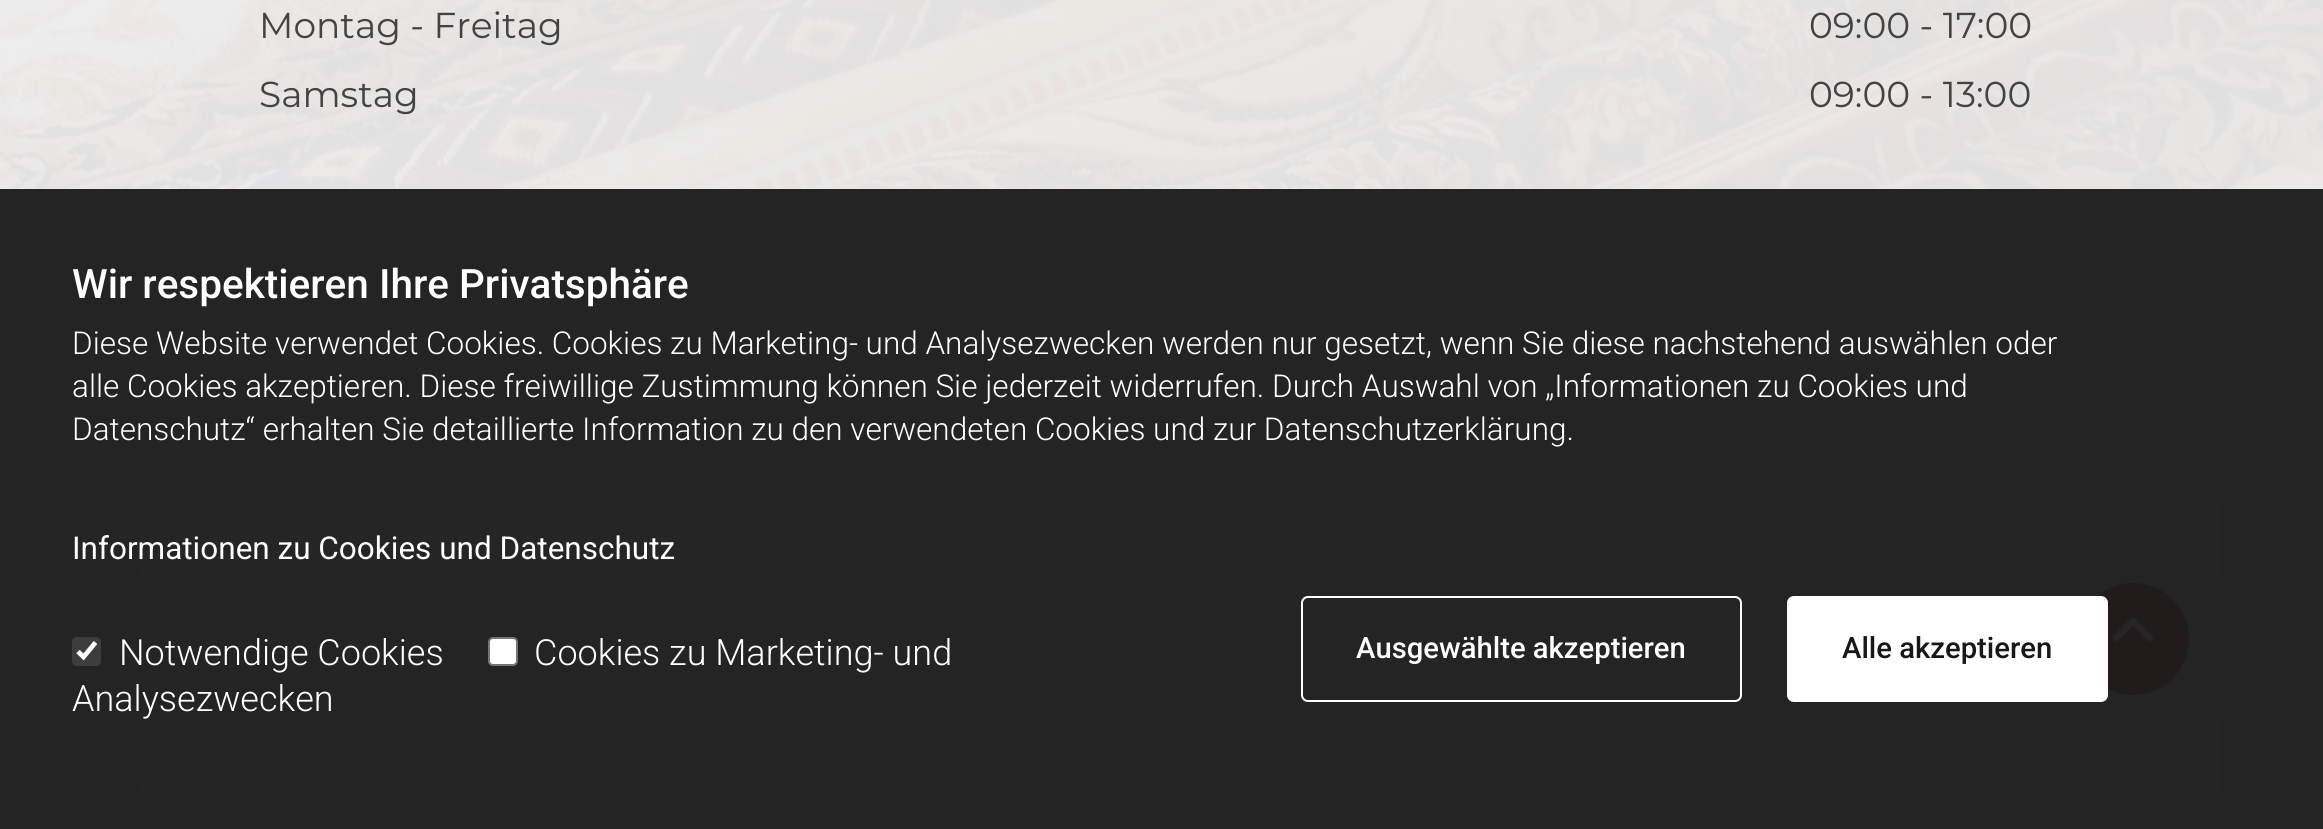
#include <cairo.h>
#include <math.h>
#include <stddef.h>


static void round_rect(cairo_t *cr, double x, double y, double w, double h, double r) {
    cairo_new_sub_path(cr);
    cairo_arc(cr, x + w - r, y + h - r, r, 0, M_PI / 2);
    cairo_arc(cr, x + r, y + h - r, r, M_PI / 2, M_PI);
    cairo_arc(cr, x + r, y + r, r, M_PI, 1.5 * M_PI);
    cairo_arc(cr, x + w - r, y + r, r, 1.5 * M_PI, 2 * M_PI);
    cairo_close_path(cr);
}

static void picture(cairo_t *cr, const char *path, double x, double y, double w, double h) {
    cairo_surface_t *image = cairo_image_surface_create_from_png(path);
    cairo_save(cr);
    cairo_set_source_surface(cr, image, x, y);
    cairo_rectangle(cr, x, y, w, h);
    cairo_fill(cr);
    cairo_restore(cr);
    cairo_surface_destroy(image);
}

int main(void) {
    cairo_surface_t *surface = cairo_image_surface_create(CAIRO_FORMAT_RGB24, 2323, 829);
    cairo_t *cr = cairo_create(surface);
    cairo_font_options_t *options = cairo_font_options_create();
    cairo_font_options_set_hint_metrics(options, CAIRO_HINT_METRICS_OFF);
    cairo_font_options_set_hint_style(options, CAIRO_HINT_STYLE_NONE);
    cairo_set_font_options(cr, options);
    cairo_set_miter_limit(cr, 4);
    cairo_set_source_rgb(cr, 1, 1, 1);
    cairo_paint(cr);
    picture(cr, "img1.png", 0, 0, 2323, 829);
    cairo_select_font_face(cr, "Montserrat", CAIRO_FONT_SLANT_NORMAL, CAIRO_FONT_WEIGHT_NORMAL);
    cairo_set_font_size(cr, 36);
    cairo_set_source_rgb(cr, 0.259, 0.263, 0.263);
    cairo_move_to(cr, 259, 38);
    cairo_show_text(cr, "Montag - Freitag");
    cairo_move_to(cr, 1809, 38);
    cairo_show_text(cr, "09:00 - 17:00");
    cairo_move_to(cr, 259, 107);
    cairo_show_text(cr, "Samstag");
    cairo_move_to(cr, 1809, 107);
    cairo_show_text(cr, "09:00 - 13:00");
    cairo_set_source_rgb(cr, 1, 1, 1);
    round_rect(cr, 136, 496, 2086, 81, 6);
    cairo_fill_preserve(cr);
    cairo_set_source_rgb(cr, 0.8, 0.8, 0.8);
    cairo_stroke(cr);
    cairo_set_source_rgb(cr, 1, 1, 1);
    round_rect(cr, 136, 712, 2086, 81, 6);
    cairo_fill_preserve(cr);
    cairo_set_source_rgb(cr, 0.8, 0.8, 0.8);
    cairo_stroke(cr);
    cairo_set_source_rgb(cr, 0.675, 0.125, 0.176);
    cairo_arc(cr, 2133, 639, 56, 0, 2 * M_PI);
    cairo_fill(cr);
    picture(cr, "img2.png", 2112, 617, 42, 25);
    cairo_set_source_rgba(cr, 0.106, 0.106, 0.106, 0.95);
    cairo_rectangle(cr, 0, 189, 2323, 640);
    cairo_fill(cr);
    cairo_select_font_face(cr, "Roboto Medium", CAIRO_FONT_SLANT_NORMAL, CAIRO_FONT_WEIGHT_NORMAL);
    cairo_set_font_size(cr, 40.5);
    cairo_set_source_rgb(cr, 1, 1, 1);
    cairo_move_to(cr, 72, 298);
    cairo_show_text(cr, "Wir respektieren Ihre Privatsphäre");
    cairo_select_font_face(cr, "Roboto Light", CAIRO_FONT_SLANT_NORMAL, CAIRO_FONT_WEIGHT_NORMAL);
    cairo_set_font_size(cr, 31.5);
    cairo_move_to(cr, 72, 354);
    cairo_show_text(cr, "Diese Website verwendet Cookies. Cookies zu Marketing- und Analysezwecken werden nur gesetzt, wenn Sie diese nachstehend auswählen oder");
    cairo_move_to(cr, 72, 397);
    cairo_show_text(cr, "alle Cookies akzeptieren. Diese freiwillige Zustimmung können Sie jederzeit widerrufen. Durch Auswahl von „Informationen zu Cookies und");
    cairo_move_to(cr, 72, 440);
    cairo_show_text(cr, "Datenschutz“ erhalten Sie detaillierte Information zu den verwendeten Cookies und zur Datenschutzerklärung.");
    cairo_select_font_face(cr, "Roboto", CAIRO_FONT_SLANT_NORMAL, CAIRO_FONT_WEIGHT_NORMAL);
    cairo_move_to(cr, 72, 559);
    cairo_show_text(cr, "Informationen zu Cookies und Datenschutz");
    round_rect(cr, 489, 638, 28, 27, 4);
    cairo_fill_preserve(cr);
    cairo_set_source_rgb(cr, 0.463, 0.463, 0.463);
    cairo_stroke(cr);
    cairo_select_font_face(cr, "Roboto Light", CAIRO_FONT_SLANT_NORMAL, CAIRO_FONT_WEIGHT_NORMAL);
    cairo_set_font_size(cr, 36);
    cairo_set_source_rgb(cr, 1, 1, 1);
    cairo_move_to(cr, 534, 665);
    cairo_show_text(cr, "Cookies zu Marketing- und");
    cairo_move_to(cr, 72, 711);
    cairo_show_text(cr, "Analysezwecken");
    cairo_set_source_rgb(cr, 0.243, 0.239, 0.239);
    round_rect(cr, 72, 637, 29, 29, 5);
    cairo_fill(cr);
    cairo_new_path(cr);
    cairo_move_to(cr, 78, 651.5);
    cairo_line_to(cr, 83.5, 657);
    cairo_line_to(cr, 95.5, 642.5);
    cairo_set_source_rgb(cr, 1, 1, 1);
    cairo_set_line_width(cr, 4.7);
    cairo_stroke(cr);
    cairo_move_to(cr, 119, 665);
    cairo_show_text(cr, "Notwendige Cookies");
    round_rect(cr, 1302, 597, 439, 104, 6);
    cairo_set_line_width(cr, 2);
    cairo_stroke(cr);
    cairo_select_font_face(cr, "Roboto Medium", CAIRO_FONT_SLANT_NORMAL, CAIRO_FONT_WEIGHT_NORMAL);
    cairo_set_font_size(cr, 29.25);
    cairo_move_to(cr, 1356, 658);
    cairo_show_text(cr, "Ausgewählte akzeptieren");
    round_rect(cr, 1788, 597, 319, 104, 6);
    cairo_fill_preserve(cr);
    cairo_stroke(cr);
    cairo_set_source_rgb(cr, 0.094, 0.094, 0.094);
    cairo_move_to(cr, 1842, 658);
    cairo_show_text(cr, "Alle akzeptieren");
    cairo_surface_write_to_png(surface, "page.png");
    cairo_font_options_destroy(options);
    cairo_destroy(cr);
    cairo_surface_destroy(surface);
    return 0;
}
